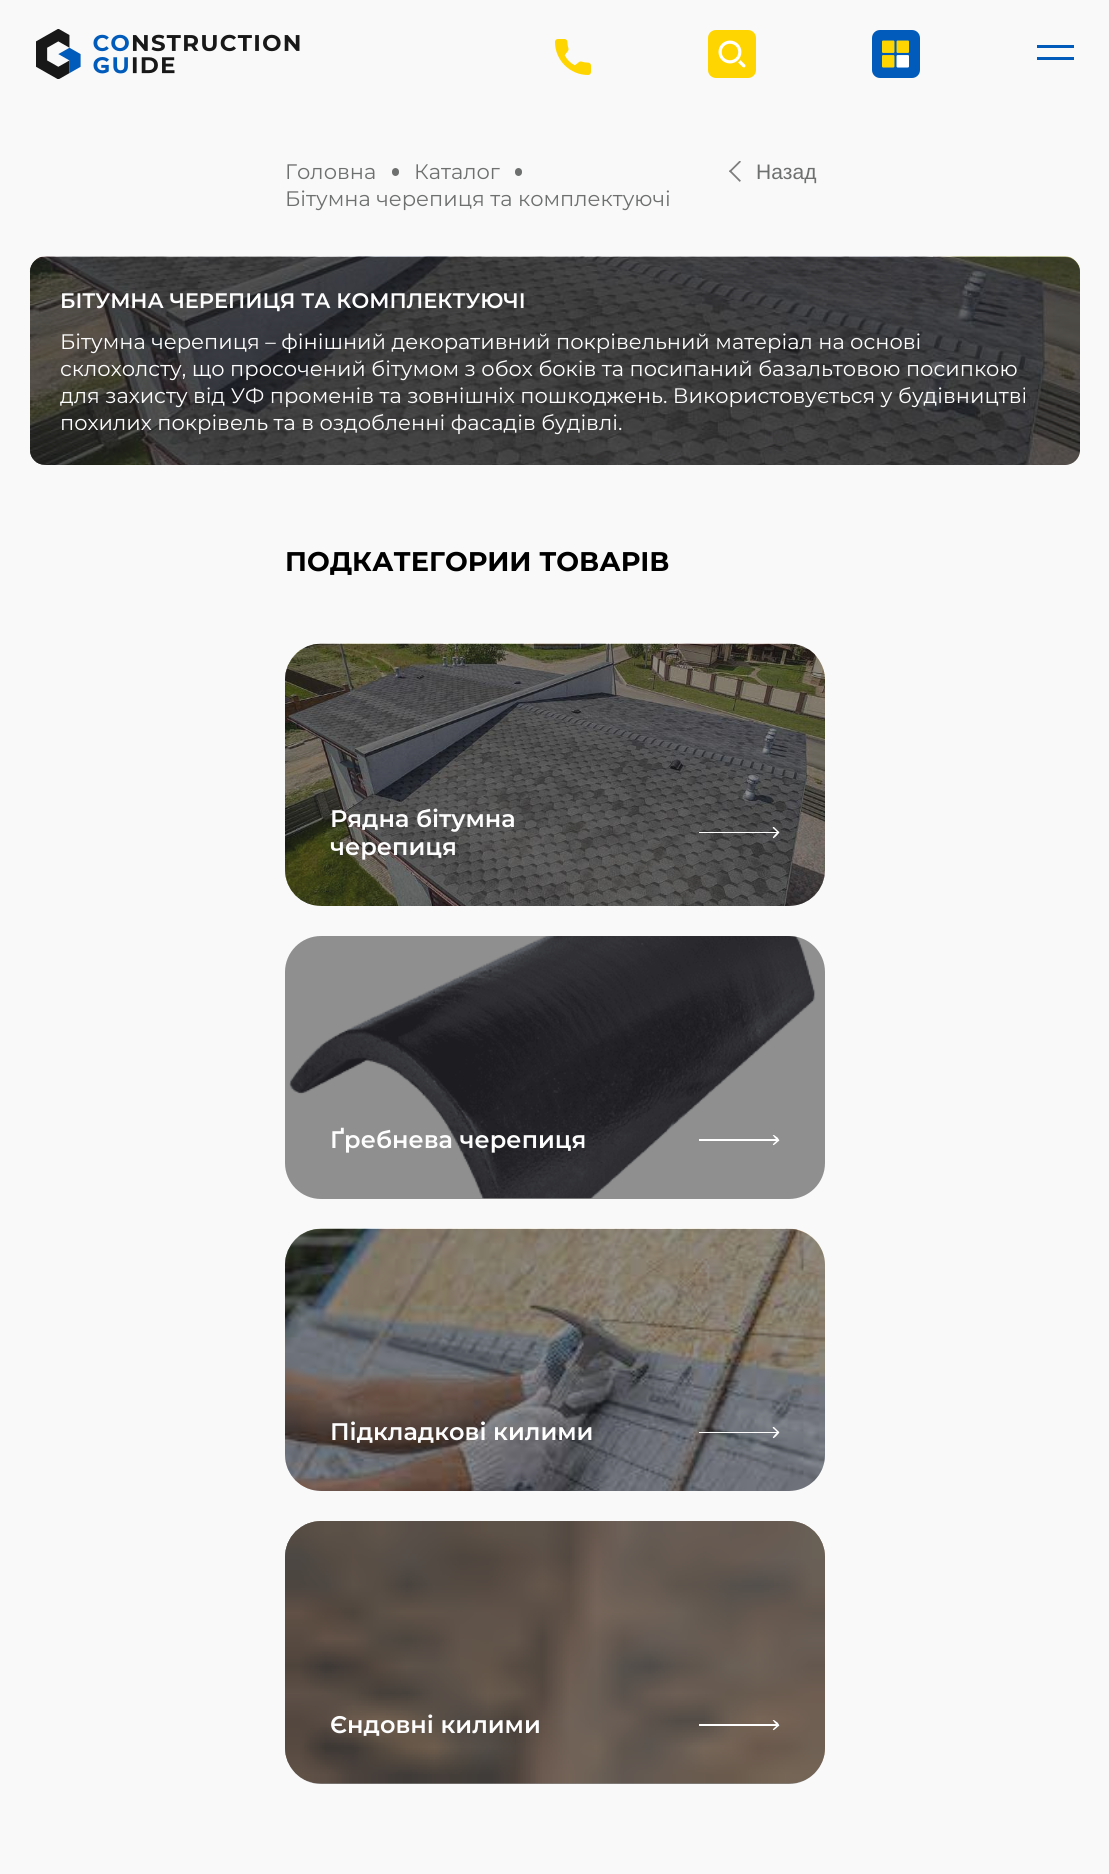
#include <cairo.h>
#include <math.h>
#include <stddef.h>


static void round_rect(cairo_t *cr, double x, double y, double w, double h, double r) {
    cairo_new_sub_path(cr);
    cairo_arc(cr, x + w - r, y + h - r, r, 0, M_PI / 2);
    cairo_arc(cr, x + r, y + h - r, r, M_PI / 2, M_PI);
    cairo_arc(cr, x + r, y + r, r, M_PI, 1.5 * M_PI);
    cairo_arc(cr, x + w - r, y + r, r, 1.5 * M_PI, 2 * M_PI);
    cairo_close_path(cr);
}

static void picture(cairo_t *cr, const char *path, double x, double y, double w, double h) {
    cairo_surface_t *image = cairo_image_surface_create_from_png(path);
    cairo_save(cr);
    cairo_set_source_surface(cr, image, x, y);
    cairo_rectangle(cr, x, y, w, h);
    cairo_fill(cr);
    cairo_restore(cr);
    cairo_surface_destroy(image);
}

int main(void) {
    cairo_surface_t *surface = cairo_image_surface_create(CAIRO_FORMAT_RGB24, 1109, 1874);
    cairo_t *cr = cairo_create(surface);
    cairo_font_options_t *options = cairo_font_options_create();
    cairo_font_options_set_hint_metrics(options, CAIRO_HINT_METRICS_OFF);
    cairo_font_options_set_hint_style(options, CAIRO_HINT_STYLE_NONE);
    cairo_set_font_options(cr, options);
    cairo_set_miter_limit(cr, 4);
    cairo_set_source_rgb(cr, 0.976, 0.976, 0.976);
    cairo_paint(cr);
    picture(cr, "img1.png", 36, 29, 264, 50);
    picture(cr, "img2.png", 555, 39, 36, 36);
    picture(cr, "img3.png", 708, 30, 48, 48);
    picture(cr, "img4.png", 872, 30, 48, 48);
    cairo_set_source_rgb(cr, 0.004, 0.357, 0.733);
    cairo_rectangle(cr, 1037, 45, 37, 3);
    cairo_fill(cr);
    cairo_rectangle(cr, 1037, 57, 37, 3);
    cairo_fill(cr);
    cairo_select_font_face(cr, "Montserrat", CAIRO_FONT_SLANT_NORMAL, CAIRO_FONT_WEIGHT_NORMAL);
    cairo_set_font_size(cr, 21);
    cairo_set_source_rgb(cr, 0.431, 0.435, 0.435);
    cairo_move_to(cr, 285, 179);
    cairo_show_text(cr, "Головна");
    round_rect(cr, 392, 168, 7, 8, 3.5);
    cairo_fill(cr);
    cairo_move_to(cr, 414, 179);
    cairo_show_text(cr, "Каталог");
    round_rect(cr, 515, 168, 7, 8, 3.5);
    cairo_fill(cr);
    cairo_move_to(cr, 285, 206);
    cairo_show_text(cr, "Бітумна черепиця та комплектуючі");
    picture(cr, "img5.png", 729, 161, 12, 21);
    cairo_select_font_face(cr, "Liberation Sans", CAIRO_FONT_SLANT_NORMAL, CAIRO_FONT_WEIGHT_NORMAL);
    cairo_move_to(cr, 756, 179);
    cairo_show_text(cr, "Назад");
    picture(cr, "img6.png", 29, 256, 1051, 209);
    cairo_set_source_rgba(cr, 0.129, 0.129, 0.133, 0.69);
    round_rect(cr, 30, 257, 1050, 208, 15);
    cairo_fill(cr);
    cairo_select_font_face(cr, "Montserrat SemiBold", CAIRO_FONT_SLANT_NORMAL, CAIRO_FONT_WEIGHT_NORMAL);
    cairo_set_source_rgb(cr, 0.992, 0.992, 0.992);
    cairo_move_to(cr, 60, 308);
    cairo_show_text(cr, "БІТУМНА ЧЕРЕПИЦЯ ТА КОМПЛЕКТУЮЧІ");
    cairo_select_font_face(cr, "Montserrat", CAIRO_FONT_SLANT_NORMAL, CAIRO_FONT_WEIGHT_NORMAL);
    cairo_move_to(cr, 60, 349);
    cairo_show_text(cr, "Бітумна черепиця – фінішний декоративний покрівельний матеріал на основі");
    cairo_move_to(cr, 60, 376);
    cairo_show_text(cr, "склохолсту, що просочений бітумом з обох боків та посипаний базальтовою посипкою");
    cairo_move_to(cr, 60, 403);
    cairo_show_text(cr, "для захисту від УФ променів та зовнішніх пошкоджень. Використовується у будівництві");
    cairo_move_to(cr, 60, 430);
    cairo_show_text(cr, "похилих покрівель та в оздобленні фасадів будівлі.");
    cairo_select_font_face(cr, "Montserrat", CAIRO_FONT_SLANT_NORMAL, CAIRO_FONT_WEIGHT_BOLD);
    cairo_set_font_size(cr, 27);
    cairo_set_source_rgb(cr, 0, 0, 0);
    cairo_move_to(cr, 285, 571);
    cairo_show_text(cr, "ПОДКАТЕГОРИИ ТОВАРІВ");
    picture(cr, "img7.png", 285, 643, 540, 263);
    cairo_set_source_rgba(cr, 0.129, 0.129, 0.133, 0.49);
    round_rect(cr, 285, 644, 540, 262, 36);
    cairo_fill(cr);
    cairo_select_font_face(cr, "Montserrat SemiBold", CAIRO_FONT_SLANT_NORMAL, CAIRO_FONT_WEIGHT_NORMAL);
    cairo_set_font_size(cr, 24);
    cairo_set_source_rgb(cr, 0.992, 0.992, 0.992);
    cairo_move_to(cr, 330, 827);
    cairo_show_text(cr, "Рядна бітумна");
    cairo_move_to(cr, 330, 855);
    cairo_show_text(cr, "черепиця");
    cairo_set_source_rgba(cr, 1, 1, 1, 0.99);
    cairo_new_path(cr);
    cairo_move_to(cr, 779, 833);
    cairo_curve_to(cr, 780, 832, 778, 831, 778, 831);
    cairo_line_to(cr, 774, 827);
    cairo_line_to(cr, 773, 827);
    cairo_curve_to(cr, 772, 828, 774, 829, 774, 829);
    cairo_line_to(cr, 777, 832);
    cairo_curve_to(cr, 777, 833, 772, 837, 773, 838);
    cairo_curve_to(cr, 774, 839, 778, 834, 779, 833);
    cairo_close_path(cr);
    cairo_move_to(cr, 699, 833);
    cairo_line_to(cr, 778, 833);
    cairo_line_to(cr, 778, 832);
    cairo_line_to(cr, 699, 832);
    cairo_close_path(cr);
    cairo_fill(cr);
    picture(cr, "img8.png", 289, 936, 527, 263);
    cairo_set_source_rgba(cr, 0.129, 0.129, 0.133, 0.49);
    round_rect(cr, 285, 936, 540, 263, 36);
    cairo_fill(cr);
    cairo_set_source_rgb(cr, 0.992, 0.992, 0.992);
    cairo_move_to(cr, 330, 1148);
    cairo_show_text(cr, "Ґребнева черепиця");
    cairo_set_source_rgb(cr, 1, 1, 1);
    cairo_new_path(cr);
    cairo_move_to(cr, 779, 1141);
    cairo_curve_to(cr, 780, 1140, 778, 1139, 778, 1138);
    cairo_line_to(cr, 774, 1135);
    cairo_line_to(cr, 773, 1135);
    cairo_curve_to(cr, 772, 1135, 774, 1136, 774, 1137);
    cairo_line_to(cr, 777, 1140);
    cairo_curve_to(cr, 777, 1141, 772, 1144, 773, 1145);
    cairo_curve_to(cr, 774, 1146, 778, 1141, 779, 1141);
    cairo_close_path(cr);
    cairo_move_to(cr, 699, 1141);
    cairo_line_to(cr, 778, 1141);
    cairo_line_to(cr, 778, 1139);
    cairo_line_to(cr, 699, 1139);
    cairo_close_path(cr);
    cairo_fill(cr);
    picture(cr, "img9.png", 285, 1228, 540, 263);
    cairo_set_source_rgba(cr, 0.129, 0.129, 0.133, 0.49);
    round_rect(cr, 285, 1229, 540, 262, 36);
    cairo_fill(cr);
    cairo_set_source_rgb(cr, 0.992, 0.992, 0.992);
    cairo_move_to(cr, 330, 1440);
    cairo_show_text(cr, "Підкладкові килими");
    cairo_set_source_rgba(cr, 1, 1, 1, 0.99);
    cairo_new_path(cr);
    cairo_move_to(cr, 779, 1433);
    cairo_curve_to(cr, 780, 1432, 778, 1431, 778, 1431);
    cairo_line_to(cr, 774, 1427);
    cairo_line_to(cr, 773, 1427);
    cairo_curve_to(cr, 772, 1428, 774, 1429, 774, 1429);
    cairo_line_to(cr, 777, 1432);
    cairo_curve_to(cr, 777, 1433, 772, 1437, 773, 1438);
    cairo_curve_to(cr, 774, 1439, 778, 1434, 779, 1433);
    cairo_close_path(cr);
    cairo_move_to(cr, 699, 1433);
    cairo_line_to(cr, 778, 1433);
    cairo_line_to(cr, 778, 1432);
    cairo_line_to(cr, 699, 1432);
    cairo_close_path(cr);
    cairo_fill(cr);
    picture(cr, "img10.png", 285, 1521, 540, 263);
    picture(cr, "img11.png", 285, 1521, 540, 263);
    cairo_set_source_rgba(cr, 0.129, 0.129, 0.133, 0.49);
    round_rect(cr, 285, 1521, 540, 263, 36);
    cairo_fill(cr);
    cairo_set_source_rgb(cr, 0.992, 0.992, 0.992);
    cairo_move_to(cr, 330, 1733);
    cairo_show_text(cr, "Єндовні килими");
    cairo_set_source_rgba(cr, 1, 1, 1, 0.99);
    cairo_new_path(cr);
    cairo_move_to(cr, 779, 1726);
    cairo_curve_to(cr, 780, 1725, 778, 1724, 778, 1723);
    cairo_line_to(cr, 774, 1720);
    cairo_line_to(cr, 773, 1720);
    cairo_curve_to(cr, 772, 1720, 774, 1721, 774, 1722);
    cairo_line_to(cr, 777, 1725);
    cairo_curve_to(cr, 777, 1726, 772, 1729, 773, 1730);
    cairo_curve_to(cr, 774, 1731, 778, 1726, 779, 1726);
    cairo_close_path(cr);
    cairo_move_to(cr, 699, 1726);
    cairo_line_to(cr, 778, 1726);
    cairo_line_to(cr, 778, 1724);
    cairo_line_to(cr, 699, 1724);
    cairo_close_path(cr);
    cairo_fill(cr);
    cairo_surface_write_to_png(surface, "page.png");
    cairo_font_options_destroy(options);
    cairo_destroy(cr);
    cairo_surface_destroy(surface);
    return 0;
}
